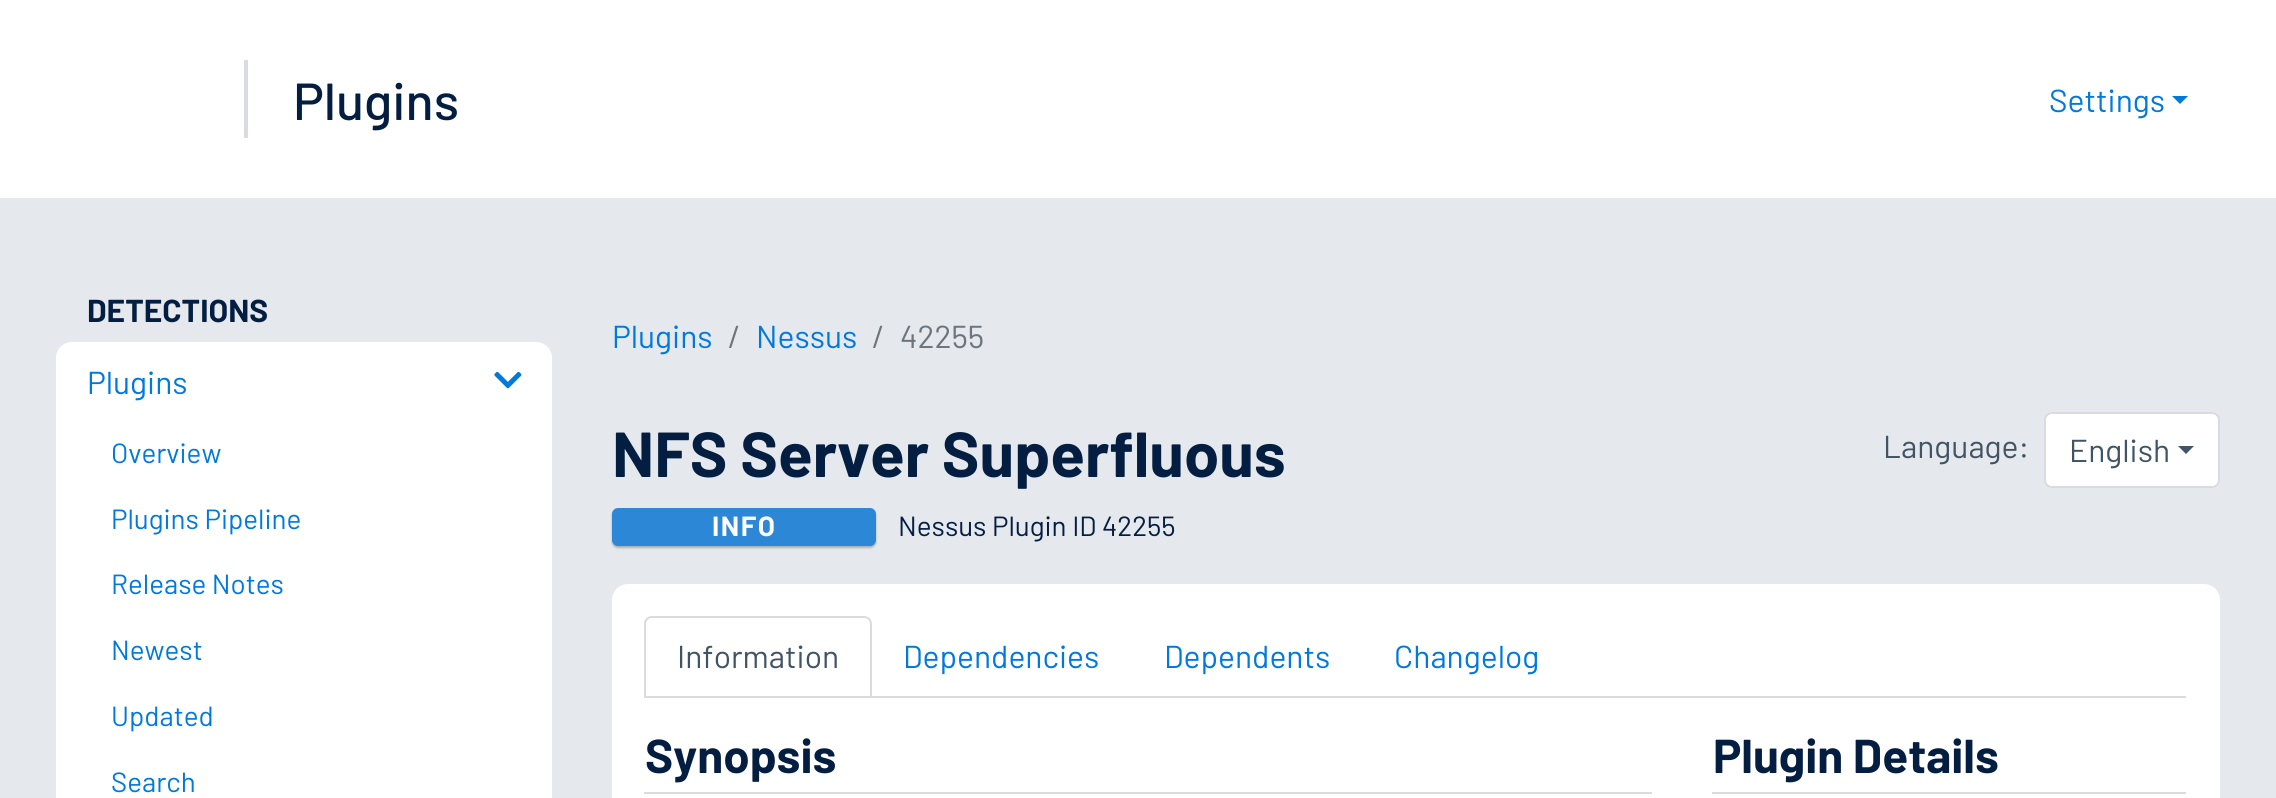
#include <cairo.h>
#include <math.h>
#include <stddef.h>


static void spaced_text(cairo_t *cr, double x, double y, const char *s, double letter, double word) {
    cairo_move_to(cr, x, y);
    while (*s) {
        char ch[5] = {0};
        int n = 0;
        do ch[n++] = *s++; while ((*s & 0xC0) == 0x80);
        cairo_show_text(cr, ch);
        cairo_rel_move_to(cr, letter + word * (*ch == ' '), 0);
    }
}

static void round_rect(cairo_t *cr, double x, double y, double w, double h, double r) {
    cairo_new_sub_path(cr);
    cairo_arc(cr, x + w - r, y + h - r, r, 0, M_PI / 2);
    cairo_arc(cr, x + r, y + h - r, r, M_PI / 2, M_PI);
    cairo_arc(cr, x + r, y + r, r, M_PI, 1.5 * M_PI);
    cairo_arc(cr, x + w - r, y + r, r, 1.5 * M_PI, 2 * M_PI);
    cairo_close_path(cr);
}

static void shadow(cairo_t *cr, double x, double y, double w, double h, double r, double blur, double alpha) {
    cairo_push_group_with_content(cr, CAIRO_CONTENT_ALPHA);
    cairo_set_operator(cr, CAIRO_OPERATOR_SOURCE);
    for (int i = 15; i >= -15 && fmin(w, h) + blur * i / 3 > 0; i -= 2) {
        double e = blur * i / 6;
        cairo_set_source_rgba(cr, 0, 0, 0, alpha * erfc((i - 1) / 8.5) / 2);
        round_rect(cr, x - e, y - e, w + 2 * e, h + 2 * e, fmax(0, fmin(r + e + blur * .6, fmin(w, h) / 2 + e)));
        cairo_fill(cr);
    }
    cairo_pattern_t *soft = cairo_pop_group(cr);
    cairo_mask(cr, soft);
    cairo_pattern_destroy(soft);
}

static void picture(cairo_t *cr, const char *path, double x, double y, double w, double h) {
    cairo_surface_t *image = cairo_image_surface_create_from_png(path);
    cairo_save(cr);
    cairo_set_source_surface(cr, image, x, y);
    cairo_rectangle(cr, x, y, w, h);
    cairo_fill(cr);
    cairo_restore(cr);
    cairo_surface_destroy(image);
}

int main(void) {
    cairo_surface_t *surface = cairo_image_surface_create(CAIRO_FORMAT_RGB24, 2276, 798);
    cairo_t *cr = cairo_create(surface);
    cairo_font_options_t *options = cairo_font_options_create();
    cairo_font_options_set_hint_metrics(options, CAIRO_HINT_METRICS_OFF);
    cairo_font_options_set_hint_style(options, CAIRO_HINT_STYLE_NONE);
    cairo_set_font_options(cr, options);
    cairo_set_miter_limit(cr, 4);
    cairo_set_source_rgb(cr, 1, 1, 1);
    cairo_paint(cr);
    cairo_set_source_rgb(cr, 0.851, 0.859, 0.878);
    cairo_rectangle(cr, 244, 60, 4, 78);
    cairo_fill(cr);
    cairo_select_font_face(cr, "Barlow Medium", CAIRO_FONT_SLANT_NORMAL, CAIRO_FONT_WEIGHT_NORMAL);
    cairo_set_font_size(cr, 52);
    cairo_set_source_rgb(cr, 0.016, 0.118, 0.259);
    cairo_move_to(cr, 293, 120);
    cairo_show_text(cr, "Plugins");
    cairo_select_font_face(cr, "Barlow", CAIRO_FONT_SLANT_NORMAL, CAIRO_FONT_WEIGHT_NORMAL);
    cairo_set_font_size(cr, 31.75);
    cairo_set_source_rgb(cr, 0, 0.475, 0.867);
    cairo_move_to(cr, 2049, 112);
    cairo_show_text(cr, "Settings");
    cairo_new_path(cr);
    cairo_move_to(cr, 2172, 96);
    cairo_line_to(cr, 2188, 96);
    cairo_line_to(cr, 2180, 104);
    cairo_close_path(cr);
    cairo_fill(cr);
    cairo_set_source_rgb(cr, 0.898, 0.914, 0.929);
    cairo_rectangle(cr, 0, 198, 2276, 600);
    cairo_fill(cr);
    cairo_select_font_face(cr, "Barlow", CAIRO_FONT_SLANT_NORMAL, CAIRO_FONT_WEIGHT_BOLD);
    cairo_set_source_rgb(cr, 0.016, 0.118, 0.259);
    cairo_move_to(cr, 87, 322);
    cairo_show_text(cr, "DETECTIONS");
    cairo_set_source_rgb(cr, 1, 1, 1);
    round_rect(cr, 56, 342, 496, 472, 16);
    cairo_fill(cr);
    cairo_select_font_face(cr, "Barlow", CAIRO_FONT_SLANT_NORMAL, CAIRO_FONT_WEIGHT_NORMAL);
    cairo_set_source_rgb(cr, 0, 0.475, 0.867);
    cairo_move_to(cr, 87, 394);
    cairo_show_text(cr, "Plugins");
    picture(cr, "img1.png", 494, 371, 28, 18);
    cairo_set_font_size(cr, 27.75);
    cairo_move_to(cr, 111, 463);
    cairo_show_text(cr, "Overview");
    cairo_move_to(cr, 111, 529);
    cairo_show_text(cr, "Plugins Pipeline");
    cairo_move_to(cr, 111, 594);
    cairo_show_text(cr, "Release Notes");
    cairo_move_to(cr, 111, 660);
    cairo_show_text(cr, "Newest");
    cairo_move_to(cr, 111, 726);
    cairo_show_text(cr, "Updated");
    cairo_move_to(cr, 111, 792);
    cairo_show_text(cr, "Search");
    cairo_set_font_size(cr, 31.75);
    cairo_move_to(cr, 612, 348);
    cairo_show_text(cr, "Plugins");
    cairo_set_source_rgb(cr, 0.424, 0.459, 0.49);
    cairo_move_to(cr, 728, 348);
    cairo_show_text(cr, "/");
    cairo_set_source_rgb(cr, 0, 0.475, 0.867);
    cairo_move_to(cr, 756, 348);
    cairo_show_text(cr, "Nessus");
    cairo_set_source_rgb(cr, 0.424, 0.459, 0.49);
    cairo_move_to(cr, 872, 348);
    cairo_show_text(cr, "/");
    cairo_move_to(cr, 900, 348);
    cairo_show_text(cr, "42255");
    cairo_select_font_face(cr, "Barlow", CAIRO_FONT_SLANT_NORMAL, CAIRO_FONT_WEIGHT_BOLD);
    cairo_set_font_size(cr, 63.5);
    cairo_set_source_rgb(cr, 0.016, 0.118, 0.259);
    cairo_move_to(cr, 612, 477);
    cairo_show_text(cr, "NFS Server Superfluous");
    cairo_set_source_rgb(cr, 0, 0, 0);
    shadow(cr, 612, 510, 264, 38, 6, 1, 0.25);
    cairo_set_source_rgb(cr, 0.173, 0.529, 0.839);
    round_rect(cr, 612, 508, 264, 38, 6);
    cairo_fill(cr);
    cairo_set_font_size(cr, 27.75);
    cairo_set_source_rgb(cr, 1, 1, 1);
    spaced_text(cr, 712, 536, "INFO", 1.5, 0);
    cairo_select_font_face(cr, "Barlow", CAIRO_FONT_SLANT_NORMAL, CAIRO_FONT_WEIGHT_NORMAL);
    cairo_set_source_rgb(cr, 0.016, 0.118, 0.259);
    cairo_move_to(cr, 898, 536);
    cairo_show_text(cr, "Nessus Plugin ID 42255");
    cairo_set_font_size(cr, 31.75);
    cairo_set_source_rgb(cr, 0.255, 0.329, 0.396);
    cairo_move_to(cr, 1883, 458);
    cairo_show_text(cr, "Language:");
    cairo_set_source_rgb(cr, 1, 1, 1);
    round_rect(cr, 2045, 413, 174, 74, 7);
    cairo_fill_preserve(cr);
    cairo_set_source_rgb(cr, 0.851, 0.859, 0.878);
    cairo_stroke(cr);
    cairo_set_source_rgb(cr, 0.255, 0.329, 0.396);
    cairo_move_to(cr, 2069, 462);
    cairo_show_text(cr, "English");
    cairo_new_path(cr);
    cairo_move_to(cr, 2178, 446);
    cairo_line_to(cr, 2194, 446);
    cairo_line_to(cr, 2186, 454);
    cairo_close_path(cr);
    cairo_fill(cr);
    cairo_set_source_rgb(cr, 1, 1, 1);
    round_rect(cr, 613, 585, 1606, 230, 15);
    cairo_fill_preserve(cr);
    cairo_stroke(cr);
    cairo_set_source_rgb(cr, 0.851, 0.859, 0.878);
    cairo_rectangle(cr, 872, 696, 1314, 2);
    cairo_fill(cr);
    cairo_new_path(cr);
    cairo_move_to(cr, 652, 617);
    cairo_line_to(cr, 864, 617);
    cairo_curve_to(cr, 868, 617, 871, 620, 871, 624);
    cairo_line_to(cr, 871, 697);
    cairo_line_to(cr, 645, 697);
    cairo_line_to(cr, 645, 624);
    cairo_curve_to(cr, 645, 620, 648, 617, 652, 617);
    cairo_close_path(cr);
    cairo_stroke(cr);
    cairo_set_source_rgb(cr, 0.255, 0.329, 0.396);
    cairo_move_to(cr, 677, 668);
    cairo_show_text(cr, "Information");
    cairo_set_source_rgb(cr, 0, 0.475, 0.867);
    cairo_move_to(cr, 903, 668);
    cairo_show_text(cr, "Dependencies");
    cairo_move_to(cr, 1164, 668);
    cairo_show_text(cr, "Dependents");
    cairo_move_to(cr, 1394, 668);
    cairo_show_text(cr, "Changelog");
    cairo_set_source_rgb(cr, 0.851, 0.859, 0.878);
    cairo_rectangle(cr, 644, 792, 1008, 2);
    cairo_fill(cr);
    cairo_select_font_face(cr, "Barlow", CAIRO_FONT_SLANT_NORMAL, CAIRO_FONT_WEIGHT_BOLD);
    cairo_set_font_size(cr, 47.5);
    cairo_set_source_rgb(cr, 0.016, 0.118, 0.259);
    cairo_move_to(cr, 645, 773);
    cairo_show_text(cr, "Synopsis");
    cairo_set_source_rgb(cr, 0.851, 0.859, 0.878);
    cairo_rectangle(cr, 1712, 792, 474, 2);
    cairo_fill(cr);
    cairo_set_source_rgb(cr, 0.016, 0.118, 0.259);
    cairo_move_to(cr, 1713, 773);
    cairo_show_text(cr, "Plugin Details");
    cairo_surface_write_to_png(surface, "page.png");
    cairo_font_options_destroy(options);
    cairo_destroy(cr);
    cairo_surface_destroy(surface);
    return 0;
}
